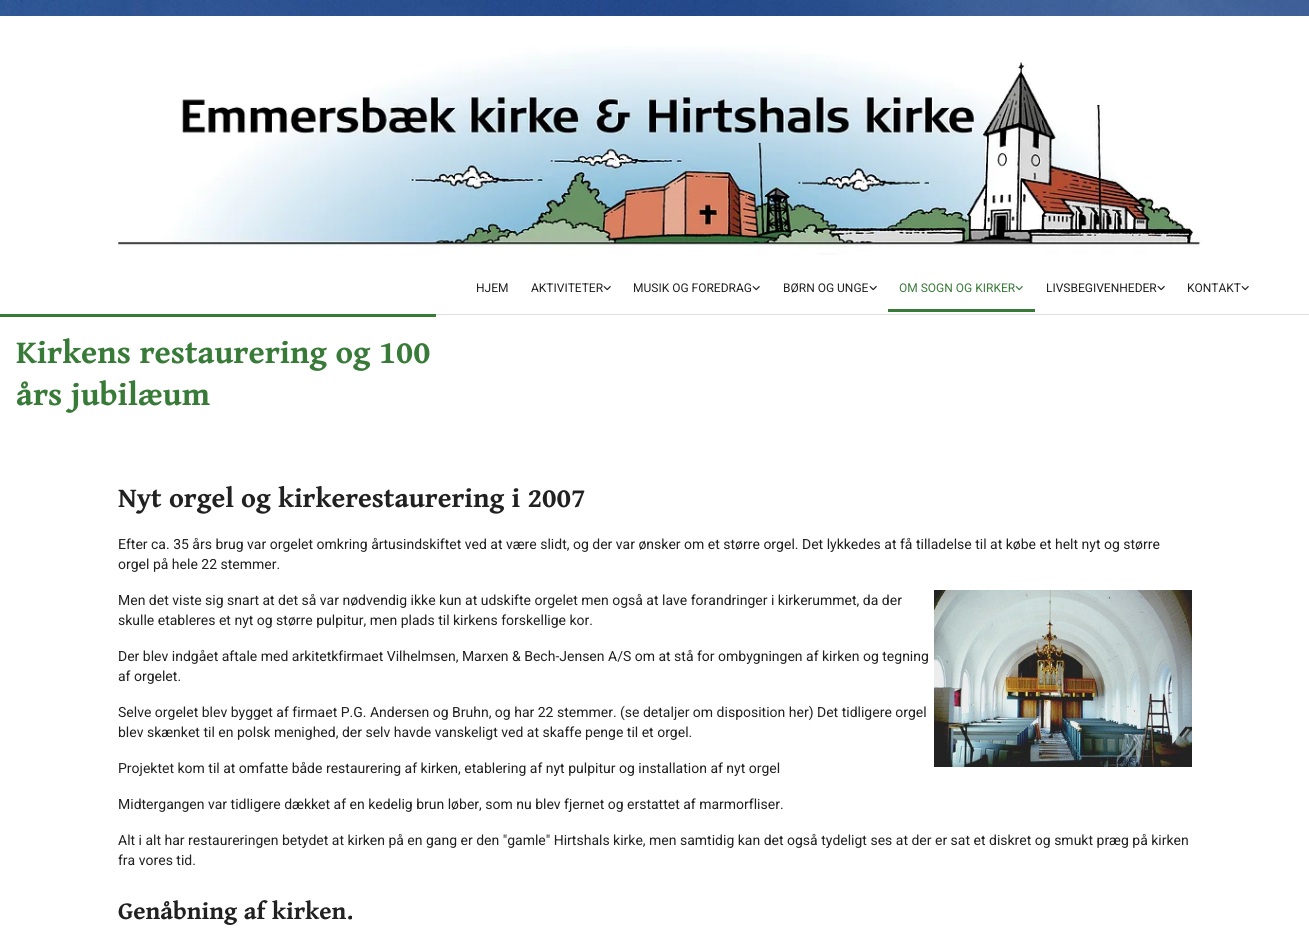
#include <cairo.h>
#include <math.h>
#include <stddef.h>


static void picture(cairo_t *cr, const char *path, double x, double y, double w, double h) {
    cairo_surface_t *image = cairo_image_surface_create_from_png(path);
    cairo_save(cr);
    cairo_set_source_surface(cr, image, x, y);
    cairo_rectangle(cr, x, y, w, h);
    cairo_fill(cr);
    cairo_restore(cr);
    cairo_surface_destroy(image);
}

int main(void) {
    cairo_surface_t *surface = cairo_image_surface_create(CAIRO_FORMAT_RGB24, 1309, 946);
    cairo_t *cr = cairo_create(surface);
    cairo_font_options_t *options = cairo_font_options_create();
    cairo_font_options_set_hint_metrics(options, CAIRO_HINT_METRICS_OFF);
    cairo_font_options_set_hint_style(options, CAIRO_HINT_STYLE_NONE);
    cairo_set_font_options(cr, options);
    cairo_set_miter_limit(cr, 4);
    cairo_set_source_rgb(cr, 1, 1, 1);
    cairo_paint(cr);
    picture(cr, "img1.png", 0, 0, 1309, 16);
    picture(cr, "img2.png", 118, 46, 1083, 209);
    cairo_select_font_face(cr, "Roboto", CAIRO_FONT_SLANT_NORMAL, CAIRO_FONT_WEIGHT_NORMAL);
    cairo_set_font_size(cr, 12);
    cairo_set_source_rgb(cr, 0.129, 0.129, 0.129);
    cairo_move_to(cr, 476, 292);
    cairo_show_text(cr, "HJEM");
    cairo_move_to(cr, 531, 292);
    cairo_show_text(cr, "AKTIVITETER");
    picture(cr, "img3.png", 603, 286, 8, 5);
    cairo_move_to(cr, 633, 292);
    cairo_show_text(cr, "MUSIK OG FOREDRAG");
    picture(cr, "img3.png", 752, 286, 8, 5);
    cairo_move_to(cr, 783, 292);
    cairo_show_text(cr, "BØRN OG UNGE");
    picture(cr, "img3.png", 869, 286, 8, 5);
    cairo_set_source_rgb(cr, 0.22, 0.478, 0.22);
    cairo_rectangle(cr, 888, 309, 147, 3);
    cairo_fill(cr);
    cairo_move_to(cr, 899, 292);
    cairo_show_text(cr, "OM SOGN OG KIRKER");
    picture(cr, "img4.png", 1015, 286, 8, 5);
    cairo_set_source_rgb(cr, 0.129, 0.129, 0.129);
    cairo_move_to(cr, 1046, 292);
    cairo_show_text(cr, "LIVSBEGIVENHEDER");
    picture(cr, "img3.png", 1157, 286, 8, 5);
    cairo_move_to(cr, 1187, 292);
    cairo_show_text(cr, "KONTAKT");
    picture(cr, "img3.png", 1241, 286, 8, 5);
    cairo_set_source_rgb(cr, 0.871, 0.871, 0.871);
    cairo_rectangle(cr, 436, 314, 873, 1);
    cairo_fill(cr);
    cairo_set_source_rgb(cr, 0.22, 0.478, 0.22);
    cairo_rectangle(cr, 0, 314, 436, 3);
    cairo_fill(cr);
    cairo_select_font_face(cr, "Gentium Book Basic", CAIRO_FONT_SLANT_NORMAL, CAIRO_FONT_WEIGHT_BOLD);
    cairo_set_font_size(cr, 33);
    cairo_move_to(cr, 16, 363);
    cairo_show_text(cr, "Kirkens restaurering og 100");
    cairo_move_to(cr, 16, 405);
    cairo_show_text(cr, "års jubilæum");
    cairo_set_font_size(cr, 28);
    cairo_set_source_rgb(cr, 0.129, 0.129, 0.129);
    cairo_move_to(cr, 118, 507);
    cairo_show_text(cr, "Nyt orgel og kirkerestaurering i 2007");
    cairo_select_font_face(cr, "Roboto", CAIRO_FONT_SLANT_NORMAL, CAIRO_FONT_WEIGHT_NORMAL);
    cairo_set_font_size(cr, 14);
    cairo_move_to(cr, 118, 549);
    cairo_show_text(cr, "Efter ca. 35 års brug var orgelet omkring årtusindskiftet ved at være slidt, og der var ønsker om et større orgel. Det lykkedes at få tilladelse til at købe et helt nyt og større");
    cairo_move_to(cr, 118, 569);
    cairo_show_text(cr, "orgel på hele 22 stemmer.");
    picture(cr, "img5.png", 934, 590, 258, 177);
    cairo_move_to(cr, 118, 605);
    cairo_show_text(cr, "Men det viste sig snart at det så var nødvendig ikke kun at udskifte orgelet men også at lave forandringer i kirkerummet, da der");
    cairo_move_to(cr, 118, 625);
    cairo_show_text(cr, "skulle etableres et nyt og større pulpitur, men plads til kirkens forskellige kor.");
    cairo_move_to(cr, 118, 661);
    cairo_show_text(cr, "Der blev indgået aftale med arkitetkfirmaet Vilhelmsen, Marxen & Bech-Jensen A/S om at stå for ombygningen af kirken og tegning");
    cairo_move_to(cr, 118, 681);
    cairo_show_text(cr, "af orgelet.");
    cairo_move_to(cr, 118, 717);
    cairo_show_text(cr, "Selve orgelet blev bygget af firmaet P.G. Andersen og Bruhn, og har 22 stemmer. (se detaljer om disposition her) Det tidligere orgel");
    cairo_move_to(cr, 118, 737);
    cairo_show_text(cr, "blev skænket til en polsk menighed, der selv havde vanskeligt ved at skaffe penge til et orgel.");
    cairo_move_to(cr, 118, 773);
    cairo_show_text(cr, "Projektet kom til at omfatte både restaurering af kirken, etablering af nyt pulpitur og installation af nyt orgel");
    cairo_move_to(cr, 118, 809);
    cairo_show_text(cr, "Midtergangen var tidligere dækket af en kedelig brun løber, som nu blev fjernet og erstattet af marmorfliser.");
    cairo_move_to(cr, 118, 845);
    cairo_show_text(cr, "Alt i alt har restaureringen betydet at kirken på en gang er den \"gamle\" Hirtshals kirke, men samtidig kan det også tydeligt ses at der er sat et diskret og smukt præg på kirken");
    cairo_move_to(cr, 118, 865);
    cairo_show_text(cr, "fra vores tid.");
    cairo_select_font_face(cr, "Gentium Book Basic", CAIRO_FONT_SLANT_NORMAL, CAIRO_FONT_WEIGHT_BOLD);
    cairo_set_font_size(cr, 25);
    cairo_move_to(cr, 118, 919);
    cairo_show_text(cr, "Genåbning af kirken.");
    cairo_surface_write_to_png(surface, "page.png");
    cairo_font_options_destroy(options);
    cairo_destroy(cr);
    cairo_surface_destroy(surface);
    return 0;
}
